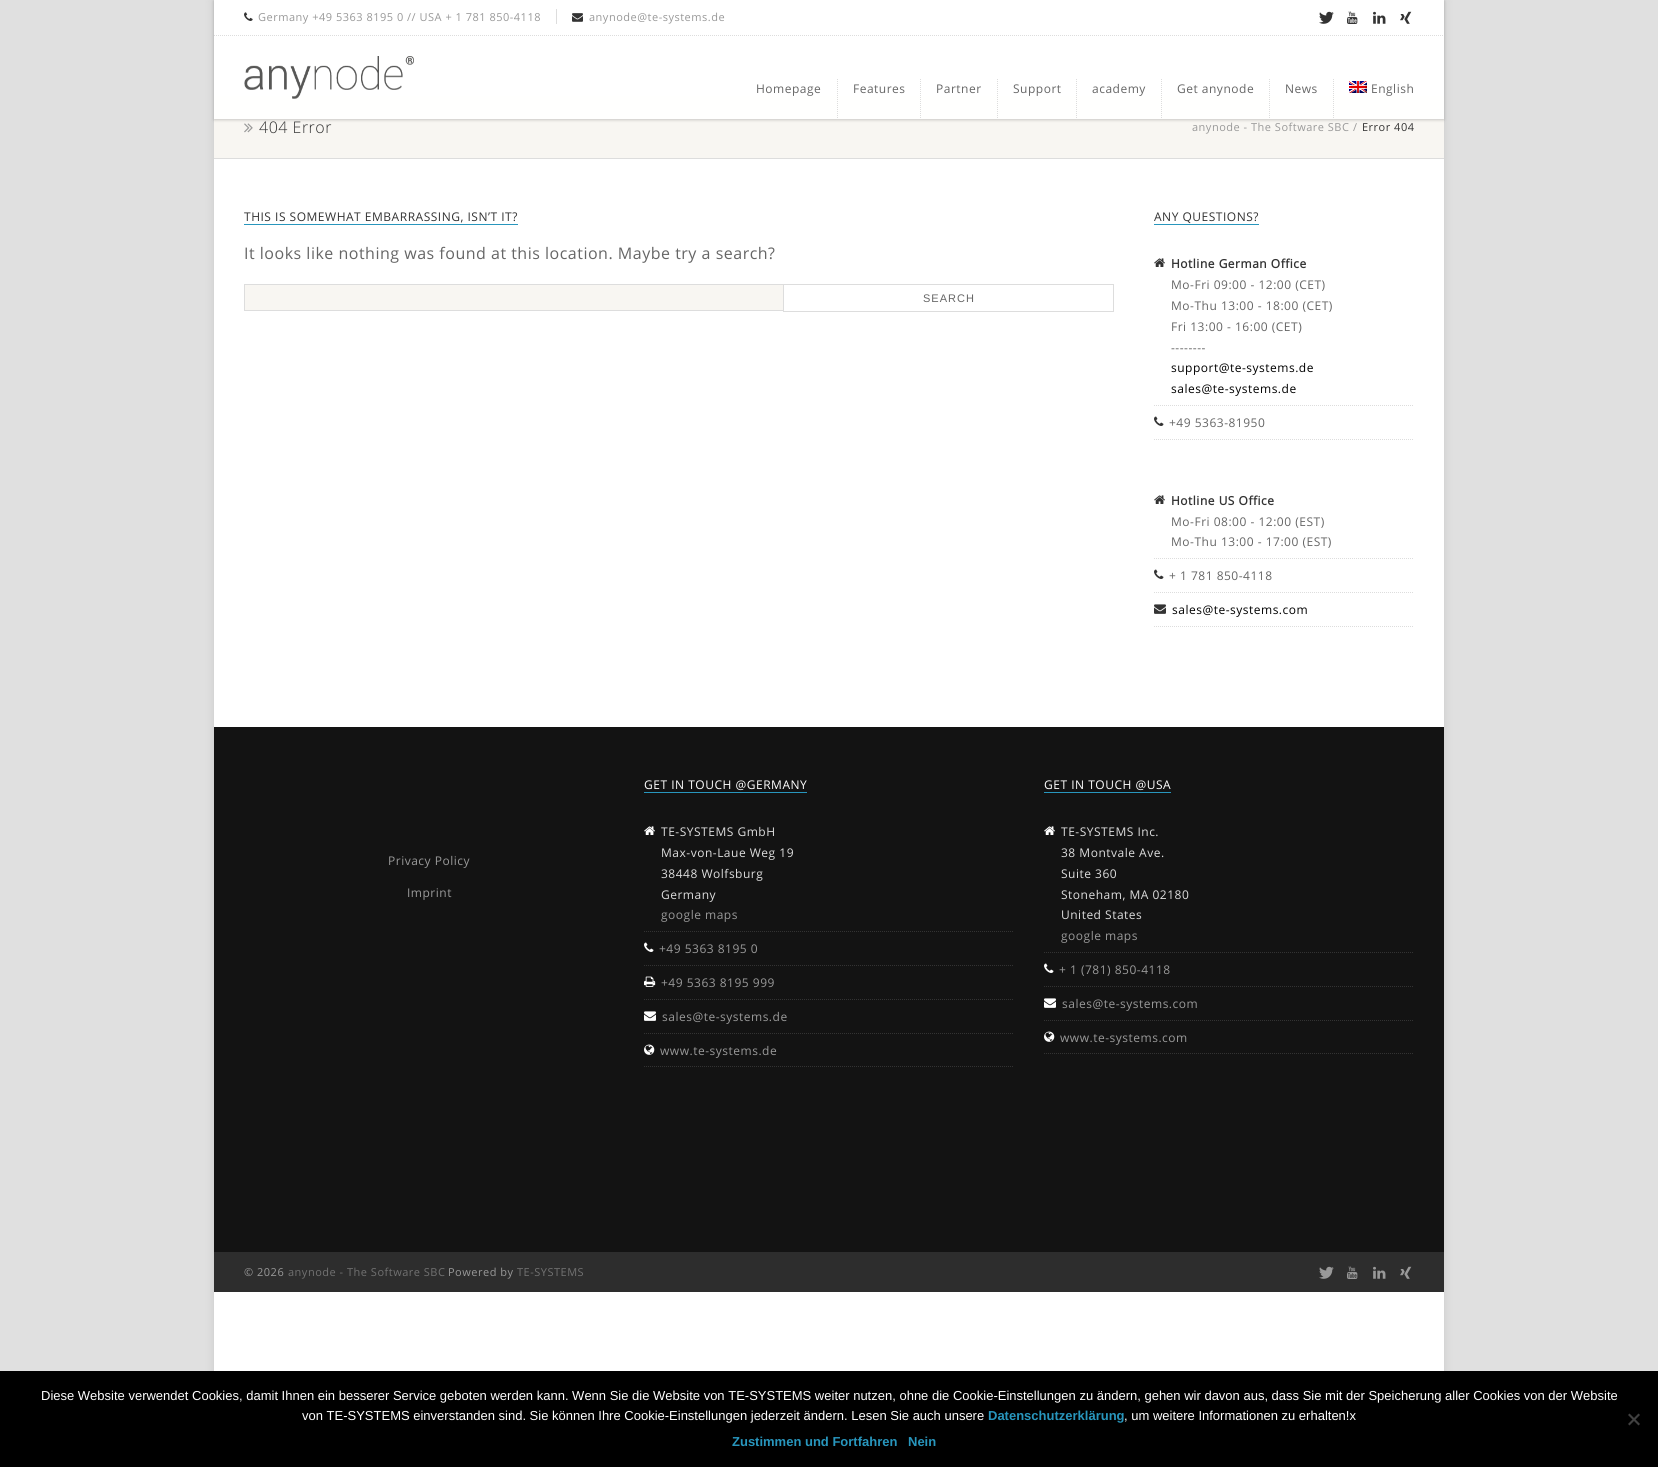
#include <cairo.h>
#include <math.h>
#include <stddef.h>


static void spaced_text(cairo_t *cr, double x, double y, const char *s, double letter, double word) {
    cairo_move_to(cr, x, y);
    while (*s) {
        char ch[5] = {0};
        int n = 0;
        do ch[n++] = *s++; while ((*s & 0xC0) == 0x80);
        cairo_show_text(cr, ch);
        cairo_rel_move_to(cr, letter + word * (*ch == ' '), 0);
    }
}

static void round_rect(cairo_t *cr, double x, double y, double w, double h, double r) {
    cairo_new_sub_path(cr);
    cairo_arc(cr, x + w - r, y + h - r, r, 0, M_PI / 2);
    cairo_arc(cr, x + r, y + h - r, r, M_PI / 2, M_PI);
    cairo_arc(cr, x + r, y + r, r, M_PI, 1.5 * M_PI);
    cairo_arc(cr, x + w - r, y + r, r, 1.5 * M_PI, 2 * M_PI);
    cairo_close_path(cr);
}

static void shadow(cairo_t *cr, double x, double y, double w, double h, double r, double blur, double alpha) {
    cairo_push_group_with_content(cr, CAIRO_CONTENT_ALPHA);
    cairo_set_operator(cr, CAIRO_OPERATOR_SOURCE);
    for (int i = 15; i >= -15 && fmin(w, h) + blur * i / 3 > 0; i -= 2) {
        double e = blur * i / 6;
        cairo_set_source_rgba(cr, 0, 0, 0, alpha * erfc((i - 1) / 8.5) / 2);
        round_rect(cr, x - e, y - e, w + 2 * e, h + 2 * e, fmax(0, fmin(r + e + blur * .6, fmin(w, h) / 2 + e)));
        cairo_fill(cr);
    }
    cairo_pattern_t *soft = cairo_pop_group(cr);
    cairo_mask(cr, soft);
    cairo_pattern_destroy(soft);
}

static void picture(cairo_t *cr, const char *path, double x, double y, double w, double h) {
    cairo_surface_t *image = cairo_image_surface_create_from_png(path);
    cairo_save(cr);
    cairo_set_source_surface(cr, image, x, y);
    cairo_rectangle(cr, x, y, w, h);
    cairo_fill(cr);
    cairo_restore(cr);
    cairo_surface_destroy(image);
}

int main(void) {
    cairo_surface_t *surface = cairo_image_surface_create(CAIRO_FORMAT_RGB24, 1658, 1467);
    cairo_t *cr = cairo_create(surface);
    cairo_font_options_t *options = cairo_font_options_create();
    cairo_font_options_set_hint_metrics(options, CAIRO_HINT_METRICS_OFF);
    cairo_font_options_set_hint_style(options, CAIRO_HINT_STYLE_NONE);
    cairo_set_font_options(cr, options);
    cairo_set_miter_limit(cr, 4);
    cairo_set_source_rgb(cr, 0.878, 0.878, 0.878);
    cairo_paint(cr);
    cairo_set_source_rgb(cr, 0, 0, 0);
    shadow(cr, 214, 0, 1230, 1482, 0, 5, 0.1);
    cairo_set_source_rgb(cr, 1, 1, 1);
    cairo_rectangle(cr, 214, 159, 1230, 1212);
    cairo_fill(cr);
    cairo_rectangle(cr, 214, 0, 1230, 96);
    cairo_fill(cr);
    cairo_set_source_rgb(cr, 0.969, 0.961, 0.949);
    cairo_rectangle(cr, 214, 119, 1230, 39);
    cairo_fill(cr);
    cairo_set_source_rgb(cr, 1, 1, 0.996);
    cairo_rectangle(cr, 214, 96, 1230, 23);
    cairo_fill(cr);
    picture(cr, "img9.png", 244, 123, 9, 10);
    cairo_save(cr);
    cairo_set_fill_rule(cr, CAIRO_FILL_RULE_EVEN_ODD);
    cairo_new_path(cr);
    cairo_move_to(cr, 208, 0);
    cairo_line_to(cr, 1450, 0);
    cairo_line_to(cr, 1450, 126);
    cairo_line_to(cr, 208, 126);
    cairo_close_path(cr);
    cairo_move_to(cr, 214, 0);
    cairo_line_to(cr, 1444, 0);
    cairo_line_to(cr, 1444, 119);
    cairo_line_to(cr, 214, 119);
    cairo_close_path(cr);
    cairo_clip(cr);
    cairo_set_source_rgb(cr, 0, 0, 0);
    shadow(cr, 214, 1, 1230, 119, 0, 1.5, 0.2);
    cairo_restore(cr);
    cairo_new_path(cr);
    cairo_move_to(cr, 214, 35.5);
    cairo_line_to(cr, 1444, 35.5);
    cairo_set_source_rgb(cr, 0.867, 0.867, 0.867);
    cairo_set_line_width(cr, 1);
    cairo_set_dash(cr, (double[]){1, 1}, 2, 0);
    cairo_stroke(cr);
    cairo_rectangle(cr, 556, 9, 1, 15);
    cairo_fill(cr);
    picture(cr, "img1.png", 244, 12, 9, 9);
    cairo_select_font_face(cr, "Open Sans", CAIRO_FONT_SLANT_NORMAL, CAIRO_FONT_WEIGHT_NORMAL);
    cairo_set_font_size(cr, 11);
    cairo_set_source_rgb(cr, 0.6, 0.6, 0.6);
    spaced_text(cr, 258, 21, "Germany +49 5363 8195 0 // USA + 1 781 850-4118", 0.5, 0);
    picture(cr, "img2.png", 572, 13, 11, 9);
    spaced_text(cr, 589, 21, "anynode@te-systems.de", 0.5, 0);
    picture(cr, "img3.png", 1319, 11, 15, 13);
    picture(cr, "img4.png", 1347, 11, 11, 13);
    picture(cr, "img5.png", 1373, 11, 13, 13);
    picture(cr, "img6.png", 1400, 11, 12, 13);
    picture(cr, "img7.png", 244, 56, 170, 43);
    cairo_set_font_size(cr, 12);
    cairo_set_source_rgb(cr, 0.4, 0.4, 0.4);
    spaced_text(cr, 756, 93, "Homepage", 0.5, 0);
    cairo_new_path(cr);
    cairo_move_to(cr, 837.5, 79);
    cairo_line_to(cr, 837.5, 119);
    cairo_set_source_rgb(cr, 0.867, 0.867, 0.867);
    cairo_stroke(cr);
    cairo_set_source_rgb(cr, 0.4, 0.4, 0.4);
    spaced_text(cr, 853, 93, "Features", 0.5, 0);
    cairo_new_path(cr);
    cairo_move_to(cr, 920.5, 79);
    cairo_line_to(cr, 920.5, 119);
    cairo_set_source_rgb(cr, 0.867, 0.867, 0.867);
    cairo_stroke(cr);
    cairo_set_source_rgb(cr, 0.4, 0.4, 0.4);
    spaced_text(cr, 936, 93, "Partner", 0.5, 0);
    cairo_new_path(cr);
    cairo_move_to(cr, 997.5, 79);
    cairo_line_to(cr, 997.5, 119);
    cairo_set_source_rgb(cr, 0.867, 0.867, 0.867);
    cairo_stroke(cr);
    cairo_set_source_rgb(cr, 0.4, 0.4, 0.4);
    spaced_text(cr, 1013, 93, "Support", 0.5, 0);
    cairo_new_path(cr);
    cairo_move_to(cr, 1076.5, 79);
    cairo_line_to(cr, 1076.5, 119);
    cairo_set_source_rgb(cr, 0.867, 0.867, 0.867);
    cairo_stroke(cr);
    cairo_set_source_rgb(cr, 0.4, 0.4, 0.4);
    spaced_text(cr, 1092, 93, "academy", 0.5, 0);
    cairo_new_path(cr);
    cairo_move_to(cr, 1161.5, 79);
    cairo_line_to(cr, 1161.5, 119);
    cairo_set_source_rgb(cr, 0.867, 0.867, 0.867);
    cairo_stroke(cr);
    cairo_set_source_rgb(cr, 0.4, 0.4, 0.4);
    spaced_text(cr, 1177, 93, "Get anynode", 0.5, 0);
    cairo_new_path(cr);
    cairo_move_to(cr, 1269.5, 79);
    cairo_line_to(cr, 1269.5, 119);
    cairo_set_source_rgb(cr, 0.867, 0.867, 0.867);
    cairo_stroke(cr);
    cairo_set_source_rgb(cr, 0.4, 0.4, 0.4);
    spaced_text(cr, 1285, 93, "News", 0.5, 0);
    cairo_new_path(cr);
    cairo_move_to(cr, 1333.5, 79);
    cairo_line_to(cr, 1333.5, 119);
    cairo_set_source_rgb(cr, 0.867, 0.867, 0.867);
    cairo_stroke(cr);
    picture(cr, "img8.png", 1349, 81, 18, 12);
    cairo_set_source_rgb(cr, 0.4, 0.4, 0.4);
    spaced_text(cr, 1371, 93, "English", 0.5, 0);
    cairo_set_source_rgb(cr, 0.867, 0.867, 0.867);
    cairo_rectangle(cr, 214, 158, 1230, 1);
    cairo_fill(cr);
    cairo_select_font_face(cr, "Open Sans Light", CAIRO_FONT_SLANT_NORMAL, CAIRO_FONT_WEIGHT_NORMAL);
    cairo_set_font_size(cr, 16);
    cairo_set_source_rgb(cr, 0.2, 0.2, 0.2);
    spaced_text(cr, 259, 133, "404 Error", 0.5, 0);
    cairo_select_font_face(cr, "Open Sans", CAIRO_FONT_SLANT_NORMAL, CAIRO_FONT_WEIGHT_NORMAL);
    cairo_set_font_size(cr, 11);
    cairo_set_source_rgb(cr, 0.6, 0.6, 0.6);
    spaced_text(cr, 1192, 131, "anynode - The Software SBC", 0.5, 0);
    spaced_text(cr, 1353, 131, "/", 0.5, 0);
    cairo_set_source_rgb(cr, 0.2, 0.2, 0.2);
    spaced_text(cr, 1362, 131, "Error 404", 0.5, 0);
    cairo_set_font_size(cr, 12);
    spaced_text(cr, 244, 221, "THIS IS SOMEWHAT EMBARRASSING, ISN’T IT?", 0.5, 0);
    cairo_set_source_rgb(cr, 0.157, 0.588, 0.741);
    cairo_rectangle(cr, 244, 224, 274, 1);
    cairo_fill(cr);
    cairo_set_font_size(cr, 16);
    cairo_set_source_rgb(cr, 0.4, 0.4, 0.4);
    spaced_text(cr, 244, 259, "It looks like nothing was found at this location. Maybe try a search?", 0.5, 0);
    cairo_set_source_rgb(cr, 0.969, 0.961, 0.949);
    cairo_rectangle(cr, 245, 285, 538, 25);
    cairo_fill(cr);
    cairo_set_source_rgb(cr, 0.867, 0.867, 0.867);
    cairo_rectangle(cr, 244, 284, 539, 1);
    cairo_fill(cr);
    cairo_rectangle(cr, 244, 310, 539, 1);
    cairo_fill(cr);
    cairo_rectangle(cr, 244, 284, 1, 27);
    cairo_fill(cr);
    cairo_rectangle(cr, 783.5, 284.5, 330, 27);
    cairo_set_dash(cr, NULL, 0, 0);
    cairo_stroke(cr);
    cairo_select_font_face(cr, "Liberation Sans", CAIRO_FONT_SLANT_NORMAL, CAIRO_FONT_WEIGHT_NORMAL);
    cairo_set_font_size(cr, 11);
    cairo_set_source_rgb(cr, 0.4, 0.4, 0.4);
    spaced_text(cr, 923, 302, "SEARCH", 1, 0);
    cairo_select_font_face(cr, "Open Sans", CAIRO_FONT_SLANT_NORMAL, CAIRO_FONT_WEIGHT_NORMAL);
    cairo_set_font_size(cr, 12);
    cairo_set_source_rgb(cr, 0.2, 0.2, 0.2);
    spaced_text(cr, 1154, 221, "ANY QUESTIONS?", 0.5, 0);
    cairo_set_source_rgb(cr, 0.157, 0.588, 0.741);
    cairo_rectangle(cr, 1154, 224, 105, 1);
    cairo_fill(cr);
    cairo_new_path(cr);
    cairo_move_to(cr, 1154, 405.5);
    cairo_line_to(cr, 1414, 405.5);
    cairo_set_source_rgb(cr, 0.867, 0.867, 0.867);
    cairo_set_dash(cr, (double[]){1, 1}, 2, 0);
    cairo_stroke(cr);
    picture(cr, "img10.png", 1154, 258, 11, 9);
    cairo_select_font_face(cr, "Open Sans", CAIRO_FONT_SLANT_NORMAL, CAIRO_FONT_WEIGHT_BOLD);
    cairo_set_source_rgb(cr, 0.2, 0.2, 0.2);
    spaced_text(cr, 1171, 268, "Hotline German Office", 0.5, 0);
    cairo_select_font_face(cr, "Open Sans", CAIRO_FONT_SLANT_NORMAL, CAIRO_FONT_WEIGHT_NORMAL);
    cairo_set_source_rgb(cr, 0.4, 0.4, 0.4);
    spaced_text(cr, 1171, 289, "Mo-Fri 09:00 - 12:00 (CET)", 0.5, 0);
    spaced_text(cr, 1171, 310, "Mo-Thu 13:00 - 18:00 (CET)", 0.5, 0);
    spaced_text(cr, 1171, 331, "Fri 13:00 - 16:00 (CET)", 0.5, 0);
    spaced_text(cr, 1171, 352, "--------", 0.5, 0);
    cairo_set_source_rgb(cr, 0, 0, 0);
    spaced_text(cr, 1171, 372, "support@te-systems.de", 0.5, 0);
    spaced_text(cr, 1171, 393, "sales@te-systems.de", 0.5, 0);
    cairo_new_path(cr);
    cairo_move_to(cr, 1154, 439.5);
    cairo_line_to(cr, 1414, 439.5);
    cairo_set_source_rgb(cr, 0.867, 0.867, 0.867);
    cairo_stroke(cr);
    picture(cr, "img11.png", 1154, 416, 10, 10);
    cairo_set_source_rgb(cr, 0.4, 0.4, 0.4);
    spaced_text(cr, 1169, 427, "+49 5363-81950", 0.5, 0);
    cairo_new_path(cr);
    cairo_move_to(cr, 1154, 558.5);
    cairo_line_to(cr, 1414, 558.5);
    cairo_set_source_rgb(cr, 0.867, 0.867, 0.867);
    cairo_stroke(cr);
    picture(cr, "img10.png", 1154, 495, 11, 9);
    cairo_select_font_face(cr, "Open Sans", CAIRO_FONT_SLANT_NORMAL, CAIRO_FONT_WEIGHT_BOLD);
    cairo_set_source_rgb(cr, 0.2, 0.2, 0.2);
    spaced_text(cr, 1171, 505, "Hotline US Office", 0.5, 0);
    cairo_select_font_face(cr, "Open Sans", CAIRO_FONT_SLANT_NORMAL, CAIRO_FONT_WEIGHT_NORMAL);
    cairo_set_source_rgb(cr, 0.4, 0.4, 0.4);
    spaced_text(cr, 1171, 526, "Mo-Fri 08:00 - 12:00 (EST)", 0.5, 0);
    spaced_text(cr, 1171, 546, "Mo-Thu 13:00 - 17:00 (EST)", 0.5, 0);
    cairo_new_path(cr);
    cairo_move_to(cr, 1154, 592.5);
    cairo_line_to(cr, 1414, 592.5);
    cairo_set_source_rgb(cr, 0.867, 0.867, 0.867);
    cairo_stroke(cr);
    picture(cr, "img11.png", 1154, 569, 10, 10);
    cairo_set_source_rgb(cr, 0.4, 0.4, 0.4);
    spaced_text(cr, 1169, 580, "+ 1 781 850-4118", 0.5, 0);
    cairo_new_path(cr);
    cairo_move_to(cr, 1154, 626.5);
    cairo_line_to(cr, 1414, 626.5);
    cairo_set_source_rgb(cr, 0.867, 0.867, 0.867);
    cairo_stroke(cr);
    picture(cr, "img12.png", 1154, 604, 12, 10);
    cairo_set_source_rgb(cr, 0, 0, 0);
    spaced_text(cr, 1172, 614, "sales@te-systems.com", 0.5, 0);
    cairo_set_source_rgb(cr, 0.078, 0.078, 0.078);
    cairo_rectangle(cr, 214, 727, 1230, 525);
    cairo_fill(cr);
    cairo_set_source_rgb(cr, 0.6, 0.6, 0.6);
    spaced_text(cr, 388, 865, "Privacy Policy", 0.5, 0);
    spaced_text(cr, 407, 897, "Imprint", 0.5, 0);
    cairo_set_source_rgb(cr, 1, 1, 1);
    spaced_text(cr, 644, 789, "GET IN TOUCH @GERMANY", 0.5, 0);
    cairo_set_source_rgb(cr, 0.157, 0.588, 0.741);
    cairo_rectangle(cr, 644, 792, 163, 1);
    cairo_fill(cr);
    cairo_new_path(cr);
    cairo_move_to(cr, 644, 931.5);
    cairo_line_to(cr, 1014, 931.5);
    cairo_set_source_rgb(cr, 0.2, 0.2, 0.2);
    cairo_stroke(cr);
    picture(cr, "img13.png", 644, 826, 11, 9);
    cairo_set_source_rgb(cr, 0.867, 0.867, 0.867);
    spaced_text(cr, 661, 836, "TE-SYSTEMS GmbH", 0.5, 0);
    spaced_text(cr, 661, 857, "Max-von-Laue Weg 19", 0.5, 0);
    spaced_text(cr, 661, 878, "38448 Wolfsburg", 0.5, 0);
    spaced_text(cr, 661, 899, "Germany", 0.5, 0);
    cairo_set_source_rgb(cr, 0.6, 0.6, 0.6);
    spaced_text(cr, 661, 919, "google maps", 0.5, 0);
    cairo_new_path(cr);
    cairo_move_to(cr, 644, 965.5);
    cairo_line_to(cr, 1014, 965.5);
    cairo_set_source_rgb(cr, 0.2, 0.2, 0.2);
    cairo_stroke(cr);
    picture(cr, "img14.png", 644, 942, 10, 10);
    cairo_set_source_rgb(cr, 0.6, 0.6, 0.6);
    spaced_text(cr, 659, 953, "+49 5363 8195 0", 0.5, 0);
    cairo_new_path(cr);
    cairo_move_to(cr, 644, 999.5);
    cairo_line_to(cr, 1014, 999.5);
    cairo_set_source_rgb(cr, 0.2, 0.2, 0.2);
    cairo_stroke(cr);
    picture(cr, "img15.png", 644, 976, 12, 11);
    cairo_set_source_rgb(cr, 0.6, 0.6, 0.6);
    spaced_text(cr, 661, 987, "+49 5363 8195 999", 0.5, 0);
    cairo_new_path(cr);
    cairo_move_to(cr, 644, 1033.5);
    cairo_line_to(cr, 1014, 1033.5);
    cairo_set_source_rgb(cr, 0.2, 0.2, 0.2);
    cairo_stroke(cr);
    picture(cr, "img16.png", 644, 1011, 12, 10);
    cairo_set_source_rgb(cr, 0.6, 0.6, 0.6);
    spaced_text(cr, 662, 1021, "sales@te-systems.de", 0.5, 0);
    cairo_new_path(cr);
    cairo_move_to(cr, 644, 1066.5);
    cairo_line_to(cr, 1014, 1066.5);
    cairo_set_source_rgb(cr, 0.2, 0.2, 0.2);
    cairo_stroke(cr);
    picture(cr, "img17.png", 644, 1044, 11, 11);
    cairo_set_source_rgb(cr, 0.6, 0.6, 0.6);
    spaced_text(cr, 660, 1055, "www.te-systems.de", 0.5, 0);
    cairo_set_source_rgb(cr, 1, 1, 1);
    spaced_text(cr, 1044, 789, "GET IN TOUCH @USA", 0.5, 0);
    cairo_set_source_rgb(cr, 0.157, 0.588, 0.741);
    cairo_rectangle(cr, 1044, 792, 127, 1);
    cairo_fill(cr);
    cairo_new_path(cr);
    cairo_move_to(cr, 1044, 952.5);
    cairo_line_to(cr, 1414, 952.5);
    cairo_set_source_rgb(cr, 0.2, 0.2, 0.2);
    cairo_stroke(cr);
    picture(cr, "img13.png", 1044, 826, 11, 9);
    cairo_set_source_rgb(cr, 0.867, 0.867, 0.867);
    spaced_text(cr, 1061, 836, "TE-SYSTEMS Inc.", 0.5, 0);
    spaced_text(cr, 1061, 857, "38 Montvale Ave.", 0.5, 0);
    spaced_text(cr, 1061, 878, "Suite 360", 0.5, 0);
    spaced_text(cr, 1061, 899, "Stoneham, MA 02180", 0.5, 0);
    spaced_text(cr, 1061, 919, "United States", 0.5, 0);
    cairo_set_source_rgb(cr, 0.6, 0.6, 0.6);
    spaced_text(cr, 1061, 940, "google maps", 0.5, 0);
    cairo_new_path(cr);
    cairo_move_to(cr, 1044, 986.5);
    cairo_line_to(cr, 1414, 986.5);
    cairo_set_source_rgb(cr, 0.2, 0.2, 0.2);
    cairo_stroke(cr);
    picture(cr, "img14.png", 1044, 963, 10, 10);
    cairo_set_source_rgb(cr, 0.6, 0.6, 0.6);
    spaced_text(cr, 1059, 974, "+ 1 (781) 850-4118", 0.5, 0);
    cairo_new_path(cr);
    cairo_move_to(cr, 1044, 1020.5);
    cairo_line_to(cr, 1414, 1020.5);
    cairo_set_source_rgb(cr, 0.2, 0.2, 0.2);
    cairo_stroke(cr);
    picture(cr, "img16.png", 1044, 998, 12, 10);
    cairo_set_source_rgb(cr, 0.6, 0.6, 0.6);
    spaced_text(cr, 1062, 1008, "sales@te-systems.com", 0.5, 0);
    cairo_new_path(cr);
    cairo_move_to(cr, 1044, 1053.5);
    cairo_line_to(cr, 1414, 1053.5);
    cairo_set_source_rgb(cr, 0.2, 0.2, 0.2);
    cairo_stroke(cr);
    picture(cr, "img17.png", 1044, 1031, 11, 11);
    cairo_set_source_rgb(cr, 0.6, 0.6, 0.6);
    spaced_text(cr, 1060, 1042, "www.te-systems.com", 0.5, 0);
    cairo_set_source_rgb(cr, 0.176, 0.176, 0.176);
    cairo_rectangle(cr, 214, 1252, 1230, 40);
    cairo_fill(cr);
    cairo_set_font_size(cr, 11);
    cairo_set_source_rgb(cr, 0.6, 0.6, 0.6);
    spaced_text(cr, 244, 1276, "© 2026", 0.5, 0);
    cairo_set_source_rgb(cr, 0.443, 0.443, 0.443);
    spaced_text(cr, 288, 1276, "anynode - The Software SBC", 0.5, 0);
    cairo_set_source_rgb(cr, 0.6, 0.6, 0.6);
    spaced_text(cr, 448, 1276, "Powered by", 0.5, 0);
    cairo_set_source_rgb(cr, 0.443, 0.443, 0.443);
    spaced_text(cr, 517, 1276, "TE-SYSTEMS", 0.5, 0);
    picture(cr, "img18.png", 1319, 1266, 15, 13);
    picture(cr, "img19.png", 1347, 1266, 11, 13);
    picture(cr, "img20.png", 1373, 1266, 13, 13);
    picture(cr, "img21.png", 1400, 1266, 12, 13);
    cairo_set_source_rgb(cr, 0, 0, 0);
    cairo_rectangle(cr, 0, 1371, 1658, 96);
    cairo_fill(cr);
    cairo_select_font_face(cr, "Liberation Sans", CAIRO_FONT_SLANT_NORMAL, CAIRO_FONT_WEIGHT_NORMAL);
    cairo_set_font_size(cr, 13);
    cairo_set_source_rgb(cr, 1, 1, 1);
    cairo_move_to(cr, 41, 1400);
    cairo_show_text(cr, "Diese Website verwendet Cookies, damit Ihnen ein besserer Service geboten werden kann. Wenn Sie die Website von TE-SYSTEMS weiter nutzen, ohne die Cookie-Einstellungen zu ändern, gehen wir davon aus, dass Sie mit der Speicherung aller Cookies von der Website");
    cairo_move_to(cr, 302, 1420);
    cairo_show_text(cr, "von TE-SYSTEMS einverstanden sind. Sie können Ihre Cookie-Einstellungen jederzeit ändern. Lesen Sie auch unsere");
    cairo_select_font_face(cr, "Liberation Sans", CAIRO_FONT_SLANT_NORMAL, CAIRO_FONT_WEIGHT_BOLD);
    cairo_set_source_rgb(cr, 0.157, 0.588, 0.741);
    cairo_move_to(cr, 988, 1420);
    cairo_show_text(cr, "Datenschutzerklärung");
    cairo_select_font_face(cr, "Liberation Sans", CAIRO_FONT_SLANT_NORMAL, CAIRO_FONT_WEIGHT_NORMAL);
    cairo_set_source_rgb(cr, 1, 1, 1);
    cairo_move_to(cr, 1124, 1420);
    cairo_show_text(cr, ", um weitere Informationen zu erhalten!x");
    cairo_set_source_rgb(cr, 0.251, 0.251, 0.251);
    cairo_new_path(cr);
    cairo_move_to(cr, 1638.5, 1413.5);
    cairo_line_to(cr, 1640, 1415);
    cairo_line_to(cr, 1629.5, 1425.5);
    cairo_line_to(cr, 1628, 1424);
    cairo_close_path(cr);
    cairo_fill(cr);
    cairo_new_path(cr);
    cairo_move_to(cr, 1628, 1415);
    cairo_line_to(cr, 1629.5, 1413.5);
    cairo_line_to(cr, 1640, 1424);
    cairo_line_to(cr, 1638.5, 1425.5);
    cairo_close_path(cr);
    cairo_fill(cr);
    cairo_select_font_face(cr, "Liberation Sans", CAIRO_FONT_SLANT_NORMAL, CAIRO_FONT_WEIGHT_BOLD);
    cairo_set_source_rgb(cr, 0.157, 0.588, 0.741);
    cairo_move_to(cr, 732, 1446);
    cairo_show_text(cr, "Zustimmen und Fortfahren");
    cairo_move_to(cr, 908, 1446);
    cairo_show_text(cr, "Nein");
    cairo_surface_write_to_png(surface, "page.png");
    cairo_font_options_destroy(options);
    cairo_destroy(cr);
    cairo_surface_destroy(surface);
    return 0;
}
